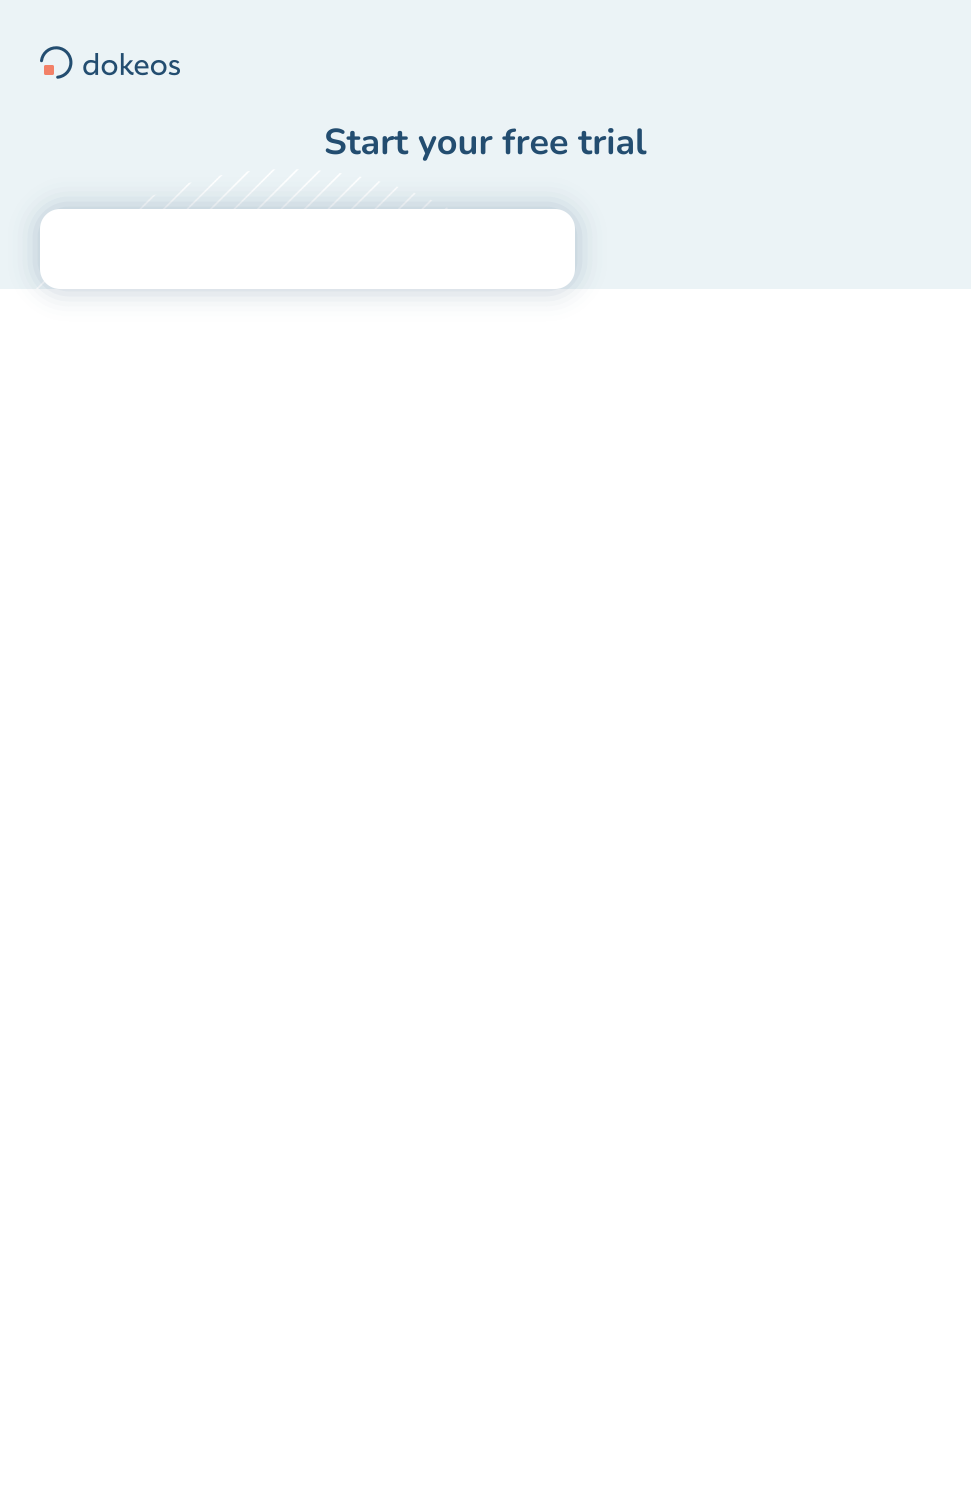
#include <cairo.h>
#include <math.h>
#include <stddef.h>


static void round_rect(cairo_t *cr, double x, double y, double w, double h, double r) {
    cairo_new_sub_path(cr);
    cairo_arc(cr, x + w - r, y + h - r, r, 0, M_PI / 2);
    cairo_arc(cr, x + r, y + h - r, r, M_PI / 2, M_PI);
    cairo_arc(cr, x + r, y + r, r, M_PI, 1.5 * M_PI);
    cairo_arc(cr, x + w - r, y + r, r, 1.5 * M_PI, 2 * M_PI);
    cairo_close_path(cr);
}

static void shadow(cairo_t *cr, double x, double y, double w, double h, double r, double blur, double alpha) {
    cairo_push_group_with_content(cr, CAIRO_CONTENT_ALPHA);
    cairo_set_operator(cr, CAIRO_OPERATOR_SOURCE);
    for (int i = 15; i >= -15 && fmin(w, h) + blur * i / 3 > 0; i -= 2) {
        double e = blur * i / 6;
        cairo_set_source_rgba(cr, 0, 0, 0, alpha * erfc((i - 1) / 8.5) / 2);
        round_rect(cr, x - e, y - e, w + 2 * e, h + 2 * e, fmax(0, fmin(r + e + blur * .6, fmin(w, h) / 2 + e)));
        cairo_fill(cr);
    }
    cairo_pattern_t *soft = cairo_pop_group(cr);
    cairo_mask(cr, soft);
    cairo_pattern_destroy(soft);
}

static void picture(cairo_t *cr, const char *path, double x, double y, double w, double h) {
    cairo_surface_t *image = cairo_image_surface_create_from_png(path);
    cairo_save(cr);
    cairo_set_source_surface(cr, image, x, y);
    cairo_rectangle(cr, x, y, w, h);
    cairo_fill(cr);
    cairo_restore(cr);
    cairo_surface_destroy(image);
}

int main(void) {
    cairo_surface_t *surface = cairo_image_surface_create(CAIRO_FORMAT_RGB24, 971, 1511);
    cairo_t *cr = cairo_create(surface);
    cairo_font_options_t *options = cairo_font_options_create();
    cairo_font_options_set_hint_metrics(options, CAIRO_HINT_METRICS_OFF);
    cairo_font_options_set_hint_style(options, CAIRO_HINT_STYLE_NONE);
    cairo_set_font_options(cr, options);
    cairo_set_miter_limit(cr, 4);
    cairo_set_source_rgb(cr, 1, 1, 1);
    cairo_paint(cr);
    cairo_set_source_rgb(cr, 0.918, 0.953, 0.961);
    cairo_rectangle(cr, 0, 0, 971, 289);
    cairo_fill(cr);
    picture(cr, "img1.png", 40, 46, 140, 33);
    cairo_select_font_face(cr, "Nunito", CAIRO_FONT_SLANT_NORMAL, CAIRO_FONT_WEIGHT_BOLD);
    cairo_set_font_size(cr, 36);
    cairo_set_source_rgb(cr, 0.137, 0.302, 0.439);
    cairo_move_to(cr, 324, 154);
    cairo_show_text(cr, "Start your free trial");
    picture(cr, "img2.png", 36, 169, 412, 120);
    cairo_set_source_rgb(cr, 0.137, 0.302, 0.439);
    shadow(cr, 40, 209, 535, 80, 20, 15, 0.3);
    cairo_set_source_rgb(cr, 1, 1, 1);
    round_rect(cr, 40, 209, 535, 80, 20);
    cairo_fill(cr);
    cairo_surface_write_to_png(surface, "page.png");
    cairo_font_options_destroy(options);
    cairo_destroy(cr);
    cairo_surface_destroy(surface);
    return 0;
}
